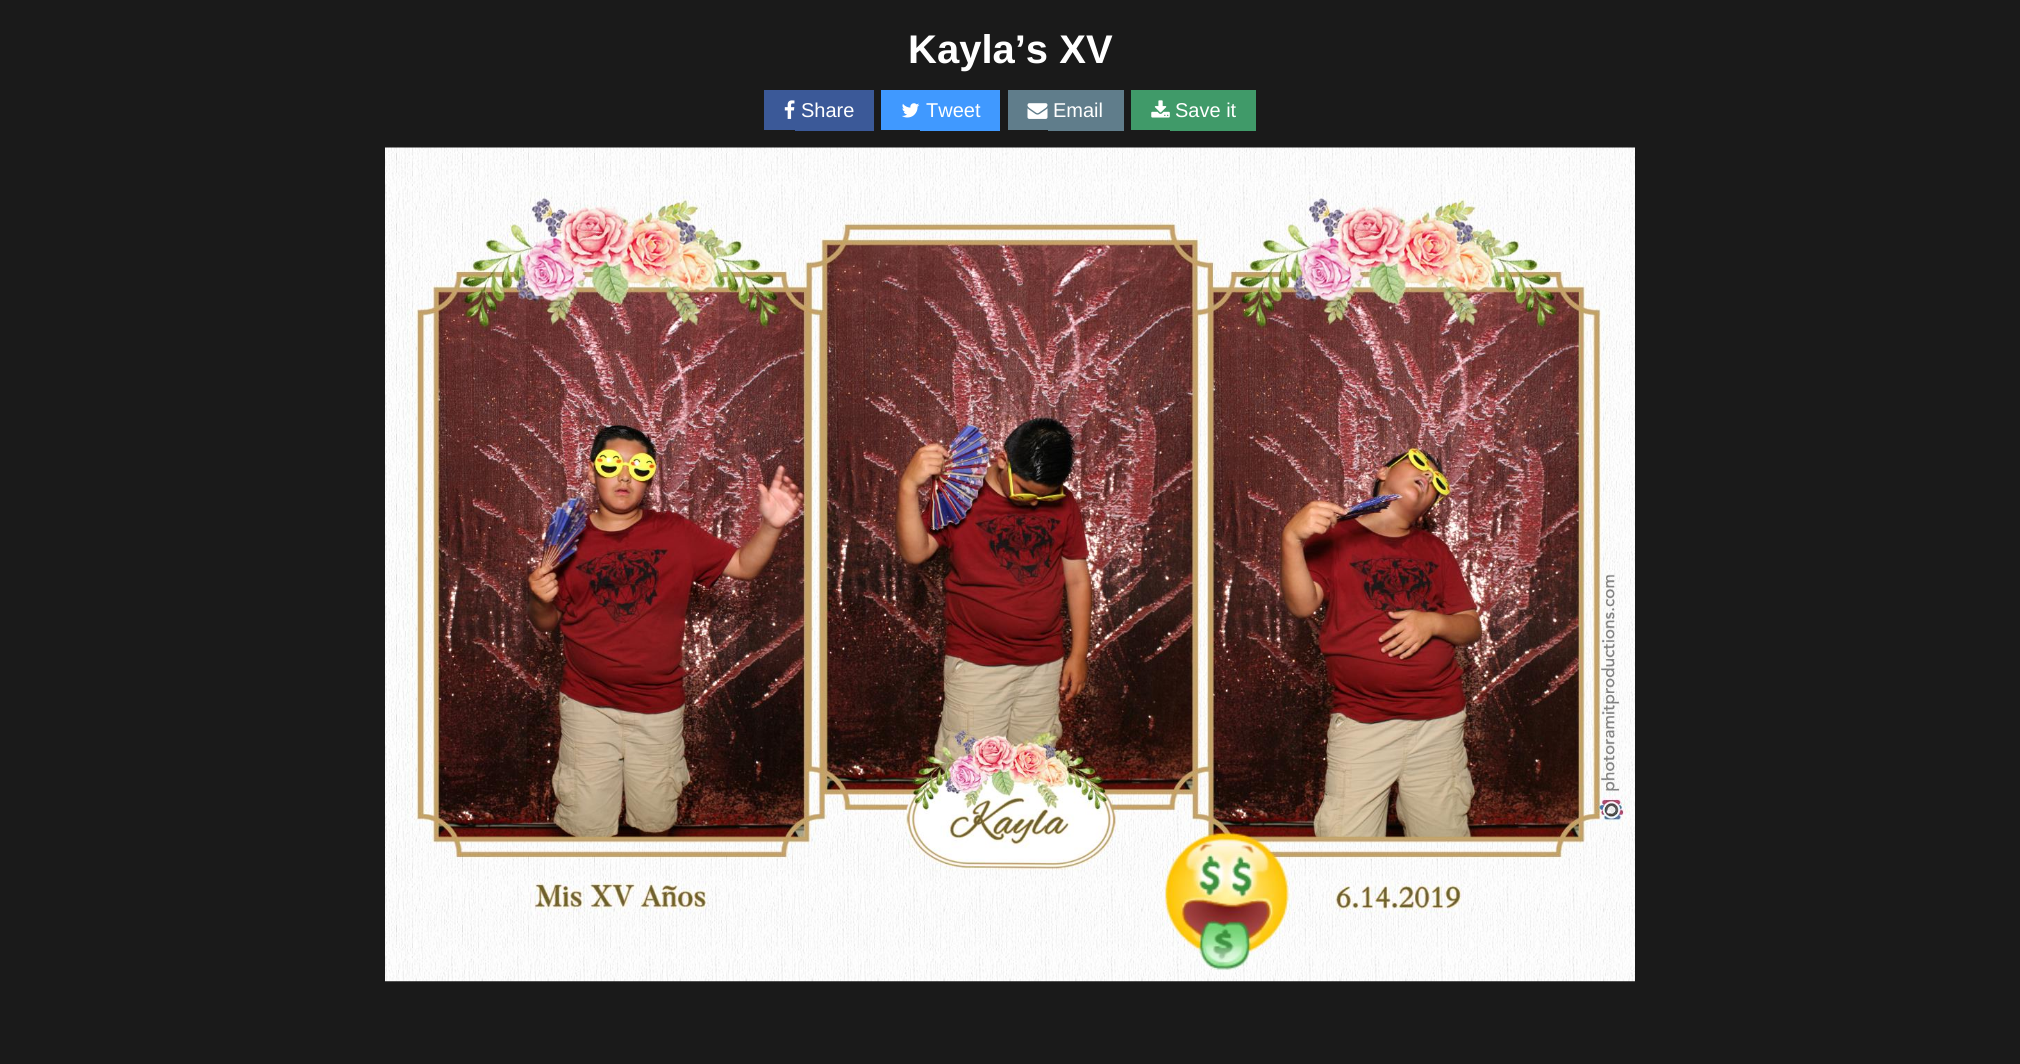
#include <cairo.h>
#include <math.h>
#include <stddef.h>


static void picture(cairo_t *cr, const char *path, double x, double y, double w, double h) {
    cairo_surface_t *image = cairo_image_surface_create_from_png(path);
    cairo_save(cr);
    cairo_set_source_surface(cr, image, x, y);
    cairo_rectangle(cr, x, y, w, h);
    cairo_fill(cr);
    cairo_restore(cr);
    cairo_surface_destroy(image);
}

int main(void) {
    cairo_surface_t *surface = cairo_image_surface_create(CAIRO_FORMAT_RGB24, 2020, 1064);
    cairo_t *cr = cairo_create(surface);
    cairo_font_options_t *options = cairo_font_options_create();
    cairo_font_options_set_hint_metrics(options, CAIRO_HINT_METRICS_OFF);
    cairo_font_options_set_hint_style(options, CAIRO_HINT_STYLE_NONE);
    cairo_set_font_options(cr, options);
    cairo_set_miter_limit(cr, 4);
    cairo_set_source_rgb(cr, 0.102, 0.102, 0.102);
    cairo_paint(cr);
    cairo_select_font_face(cr, "Liberation Sans", CAIRO_FONT_SLANT_NORMAL, CAIRO_FONT_WEIGHT_BOLD);
    cairo_set_font_size(cr, 40);
    cairo_set_source_rgb(cr, 1, 1, 1);
    cairo_move_to(cr, 908, 63);
    cairo_show_text(cr, "Kayla’s XV");
    cairo_set_source_rgb(cr, 0.231, 0.349, 0.596);
    cairo_rectangle(cr, 764, 90, 31, 40);
    cairo_fill(cr);
    cairo_rectangle(cr, 795, 90, 79, 41);
    cairo_fill(cr);
    picture(cr, "img1.png", 784, 100, 11, 19);
    cairo_select_font_face(cr, "Liberation Sans", CAIRO_FONT_SLANT_NORMAL, CAIRO_FONT_WEIGHT_NORMAL);
    cairo_set_font_size(cr, 20);
    cairo_set_source_rgb(cr, 1, 1, 1);
    cairo_move_to(cr, 801, 117);
    cairo_show_text(cr, "Share");
    cairo_set_source_rgb(cr, 0.251, 0.6, 1);
    cairo_rectangle(cr, 881, 90, 39, 40);
    cairo_fill(cr);
    cairo_rectangle(cr, 920, 90, 80, 41);
    cairo_fill(cr);
    picture(cr, "img2.png", 901, 103, 19, 15);
    cairo_set_source_rgb(cr, 1, 1, 1);
    cairo_move_to(cr, 926, 117);
    cairo_show_text(cr, "Tweet");
    cairo_set_source_rgb(cr, 0.376, 0.49, 0.545);
    cairo_rectangle(cr, 1008, 90, 40, 40);
    cairo_fill(cr);
    cairo_rectangle(cr, 1048, 90, 76, 41);
    cairo_fill(cr);
    picture(cr, "img3.png", 1027, 103, 21, 16);
    cairo_set_source_rgb(cr, 1, 1, 1);
    cairo_move_to(cr, 1053, 117);
    cairo_show_text(cr, "Email");
    cairo_set_source_rgb(cr, 0.251, 0.604, 0.412);
    cairo_rectangle(cr, 1131, 90, 39, 40);
    cairo_fill(cr);
    cairo_rectangle(cr, 1170, 90, 86, 41);
    cairo_fill(cr);
    picture(cr, "img4.png", 1151, 100, 19, 18);
    cairo_set_source_rgb(cr, 1, 1, 1);
    cairo_move_to(cr, 1175, 117);
    cairo_show_text(cr, "Save it");
    picture(cr, "img5.png", 385, 147, 1250, 835);
    cairo_surface_write_to_png(surface, "page.png");
    cairo_font_options_destroy(options);
    cairo_destroy(cr);
    cairo_surface_destroy(surface);
    return 0;
}
